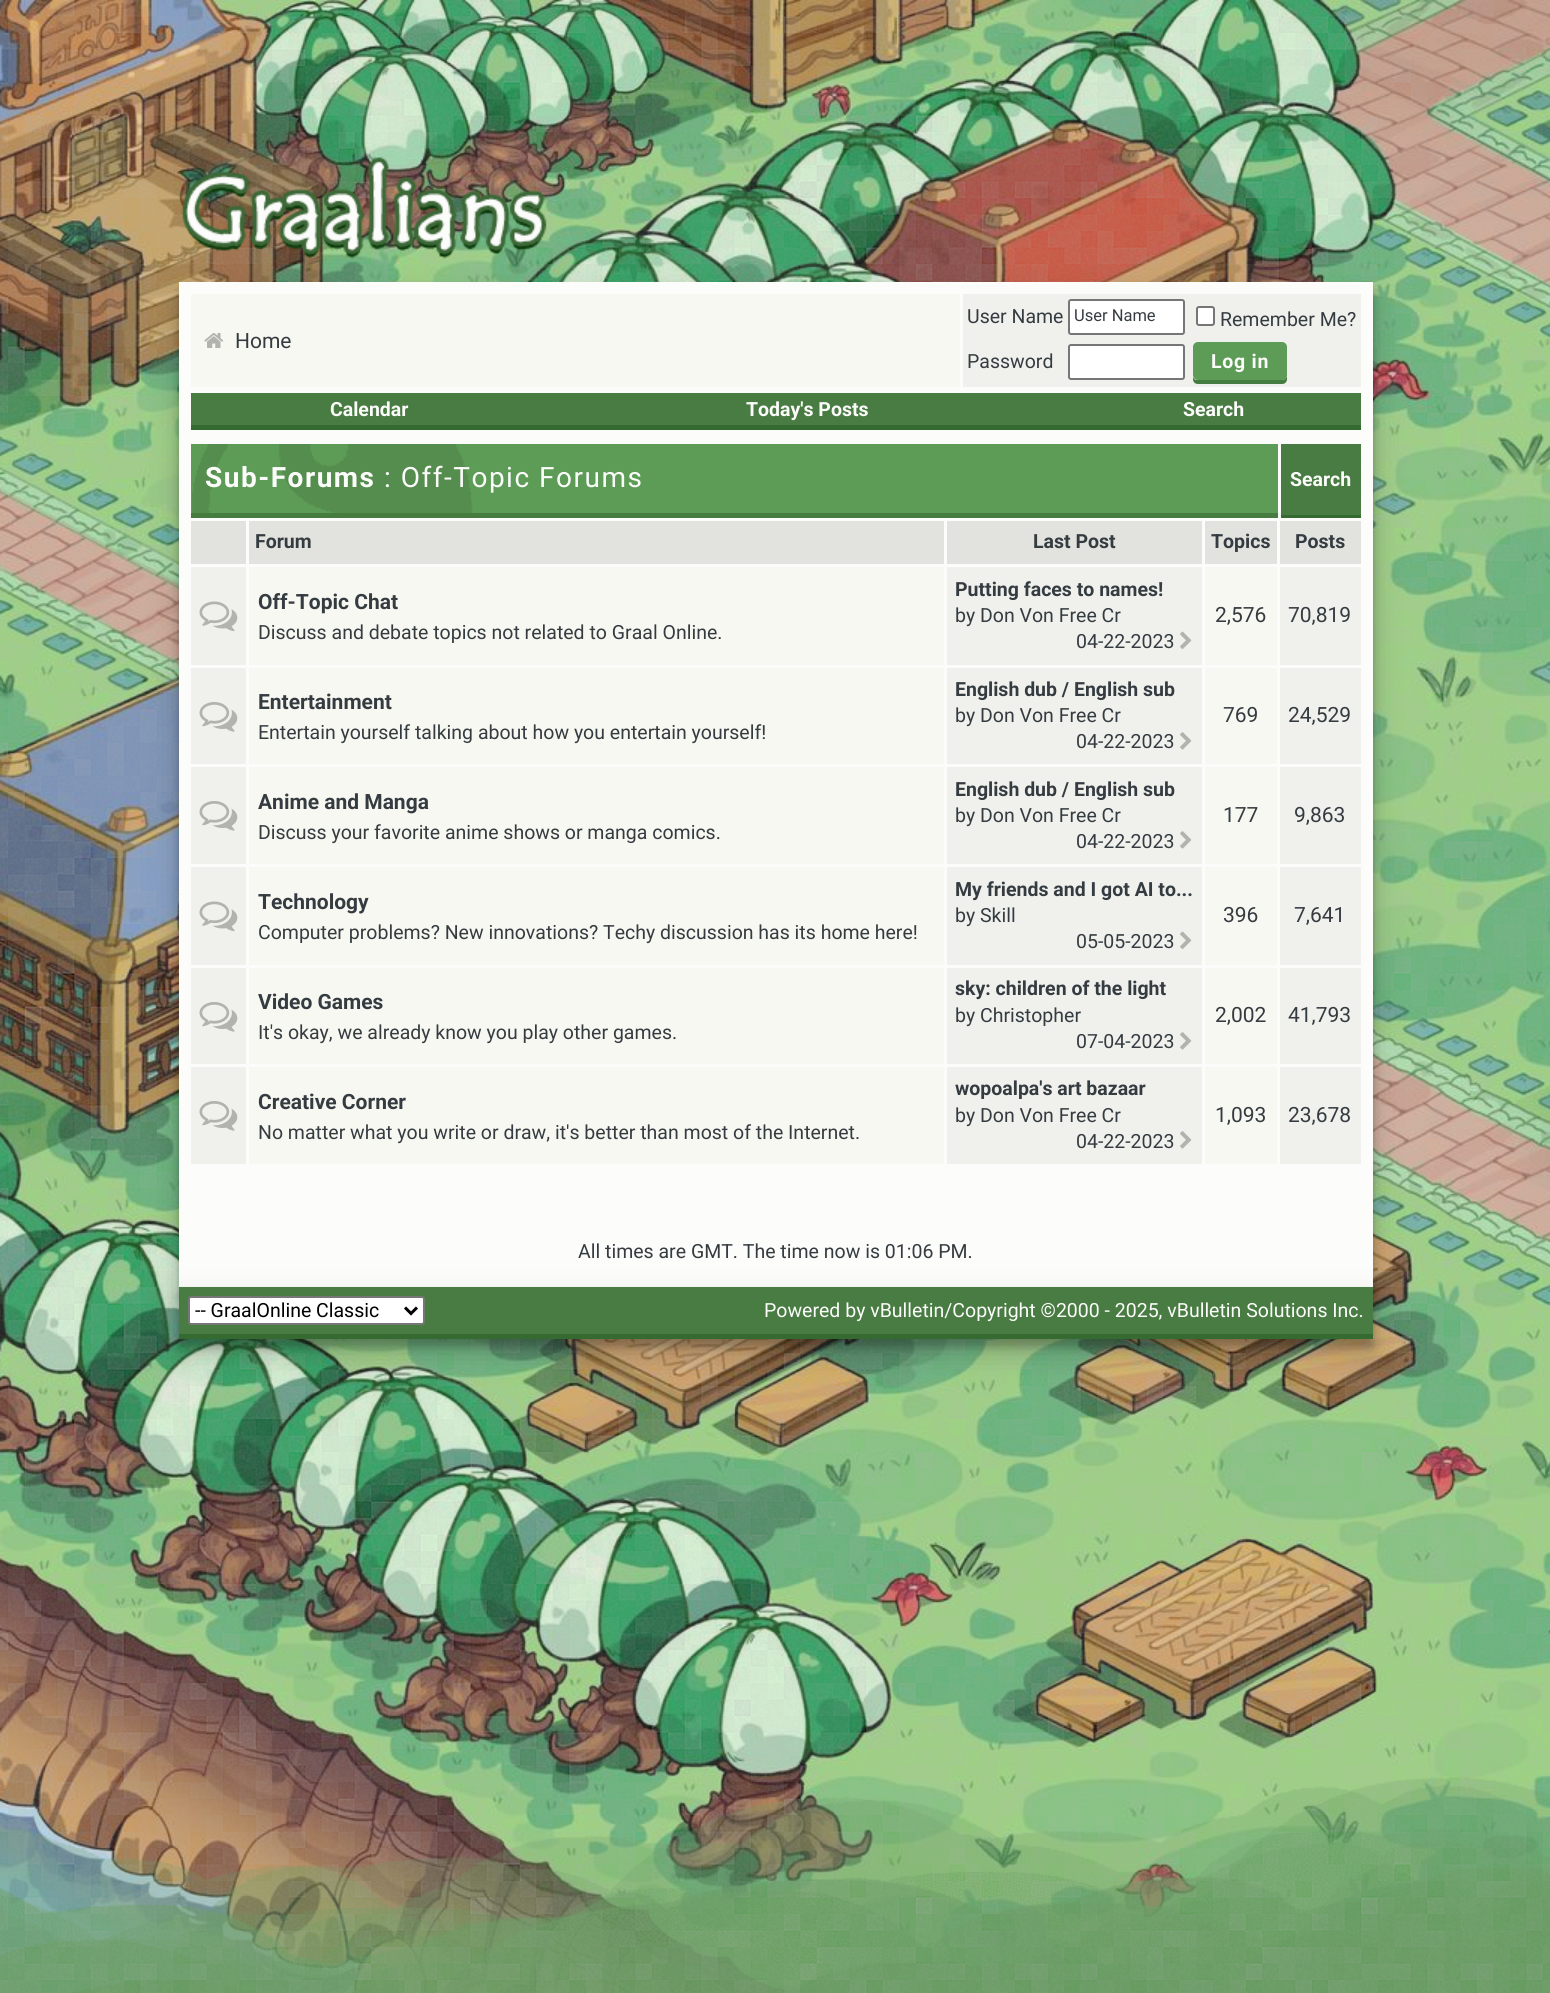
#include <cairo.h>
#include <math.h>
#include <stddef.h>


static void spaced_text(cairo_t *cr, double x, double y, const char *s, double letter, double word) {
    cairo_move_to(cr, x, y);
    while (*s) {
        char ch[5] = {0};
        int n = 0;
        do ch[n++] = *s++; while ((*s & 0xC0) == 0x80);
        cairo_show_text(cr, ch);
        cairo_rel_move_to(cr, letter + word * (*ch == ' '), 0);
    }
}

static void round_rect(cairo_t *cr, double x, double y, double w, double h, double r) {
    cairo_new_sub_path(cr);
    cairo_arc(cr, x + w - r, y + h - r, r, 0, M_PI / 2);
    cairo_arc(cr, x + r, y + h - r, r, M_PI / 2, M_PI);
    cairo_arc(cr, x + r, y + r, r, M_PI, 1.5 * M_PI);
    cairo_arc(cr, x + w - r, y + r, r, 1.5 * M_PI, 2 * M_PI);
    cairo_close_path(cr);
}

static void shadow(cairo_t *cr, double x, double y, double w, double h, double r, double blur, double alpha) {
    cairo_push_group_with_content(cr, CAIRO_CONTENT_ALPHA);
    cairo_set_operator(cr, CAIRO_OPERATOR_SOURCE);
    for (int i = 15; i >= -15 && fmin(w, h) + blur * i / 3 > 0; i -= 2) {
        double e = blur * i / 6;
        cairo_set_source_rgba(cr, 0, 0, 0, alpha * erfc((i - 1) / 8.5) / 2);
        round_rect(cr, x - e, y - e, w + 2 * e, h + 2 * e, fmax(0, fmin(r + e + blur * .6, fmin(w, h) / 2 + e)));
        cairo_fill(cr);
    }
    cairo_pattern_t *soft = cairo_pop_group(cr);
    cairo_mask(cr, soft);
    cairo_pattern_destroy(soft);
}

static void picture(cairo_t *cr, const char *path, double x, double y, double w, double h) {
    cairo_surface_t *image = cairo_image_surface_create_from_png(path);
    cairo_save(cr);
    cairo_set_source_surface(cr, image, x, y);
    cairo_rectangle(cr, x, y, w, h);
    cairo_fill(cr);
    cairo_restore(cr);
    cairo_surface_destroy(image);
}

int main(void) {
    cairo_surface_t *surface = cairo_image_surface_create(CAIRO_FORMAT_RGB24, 1550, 1993);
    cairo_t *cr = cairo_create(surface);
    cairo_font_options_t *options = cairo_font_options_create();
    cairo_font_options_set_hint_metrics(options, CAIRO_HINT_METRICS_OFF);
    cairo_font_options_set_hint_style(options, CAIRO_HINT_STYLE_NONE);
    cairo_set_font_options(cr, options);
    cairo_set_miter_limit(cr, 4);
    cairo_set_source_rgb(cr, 1, 1, 1);
    cairo_paint(cr);
    picture(cr, "img1.png", 0, 0, 1550, 1993);
    cairo_set_source_rgb(cr, 0, 0, 0);
    shadow(cr, 179, 297, 1194, 1005, 0, 15, 0.19);
    picture(cr, "img2.png", 181, 157, 366, 102);
    shadow(cr, 179, 291, 1194, 1005, 0, 4.5, 0.23);
    cairo_set_source_rgb(cr, 0.988, 0.988, 0.984);
    cairo_rectangle(cr, 179, 282, 1194, 1005);
    cairo_fill(cr);
    cairo_set_source_rgb(cr, 0.969, 0.969, 0.949);
    cairo_rectangle(cr, 191, 294, 769, 93);
    cairo_fill(cr);
    picture(cr, "img3.png", 204, 333, 20, 15);
    cairo_select_font_face(cr, "Roboto", CAIRO_FONT_SLANT_NORMAL, CAIRO_FONT_WEIGHT_NORMAL);
    cairo_set_font_size(cr, 21);
    cairo_set_source_rgb(cr, 0.208, 0.235, 0.255);
    cairo_move_to(cr, 235, 348);
    cairo_show_text(cr, "Home");
    cairo_set_source_rgb(cr, 0.941, 0.945, 0.929);
    cairo_rectangle(cr, 963, 294, 398, 93);
    cairo_fill(cr);
    cairo_set_font_size(cr, 19.5);
    cairo_set_source_rgb(cr, 0.208, 0.235, 0.255);
    cairo_move_to(cr, 967, 323);
    cairo_show_text(cr, "User Name");
    cairo_set_source_rgb(cr, 1, 1, 1);
    round_rect(cr, 1069, 300, 115, 34, 2);
    cairo_fill_preserve(cr);
    cairo_set_source_rgb(cr, 0.463, 0.463, 0.463);
    cairo_stroke(cr);
    cairo_set_font_size(cr, 16.5);
    cairo_set_source_rgb(cr, 0.208, 0.235, 0.255);
    cairo_move_to(cr, 1074, 321);
    cairo_show_text(cr, "User Name");
    cairo_set_source_rgb(cr, 1, 1, 1);
    round_rect(cr, 1197, 307, 17, 18, 2);
    cairo_fill_preserve(cr);
    cairo_set_source_rgb(cr, 0.463, 0.463, 0.463);
    cairo_stroke(cr);
    cairo_set_font_size(cr, 19.5);
    cairo_set_source_rgb(cr, 0.208, 0.235, 0.255);
    cairo_move_to(cr, 1220, 326);
    cairo_show_text(cr, "Remember Me?");
    cairo_move_to(cr, 967, 368);
    cairo_show_text(cr, "Password");
    cairo_set_source_rgb(cr, 1, 1, 1);
    round_rect(cr, 1069, 345, 115, 34, 2);
    cairo_fill_preserve(cr);
    cairo_set_source_rgb(cr, 0.463, 0.463, 0.463);
    cairo_stroke(cr);
    cairo_set_source_rgb(cr, 0.278, 0.486, 0.255);
    cairo_new_path(cr);
    cairo_move_to(cr, 1193, 377);
    cairo_line_to(cr, 1193, 379);
    cairo_curve_to(cr, 1193, 382, 1195, 384, 1198, 384);
    cairo_line_to(cr, 1282, 384);
    cairo_curve_to(cr, 1285, 384, 1287, 382, 1287, 379);
    cairo_line_to(cr, 1287, 375);
    cairo_curve_to(cr, 1287, 377, 1285, 380, 1282, 380);
    cairo_line_to(cr, 1197, 380);
    cairo_curve_to(cr, 1195, 380, 1194, 379, 1193, 377);
    cairo_close_path(cr);
    cairo_fill(cr);
    cairo_set_source_rgb(cr, 0.365, 0.612, 0.337);
    round_rect(cr, 1193, 342, 94, 38, 5);
    cairo_fill(cr);
    cairo_select_font_face(cr, "Roboto", CAIRO_FONT_SLANT_NORMAL, CAIRO_FONT_WEIGHT_BOLD);
    cairo_set_source_rgb(cr, 0.988, 0.988, 0.984);
    spaced_text(cr, 1211, 368, "Log in", 0.75, 0);
    cairo_set_source_rgb(cr, 0.282, 0.486, 0.259);
    cairo_rectangle(cr, 191, 393, 1170, 32);
    cairo_fill(cr);
    cairo_set_source_rgb(cr, 0.208, 0.416, 0.192);
    cairo_rectangle(cr, 191, 425, 1170, 5);
    cairo_fill(cr);
    cairo_set_source_rgb(cr, 0.988, 0.988, 0.984);
    cairo_move_to(cr, 330, 416);
    cairo_show_text(cr, "Calendar");
    cairo_move_to(cr, 746, 416);
    cairo_show_text(cr, "Today's Posts");
    cairo_move_to(cr, 1183, 416);
    cairo_show_text(cr, "Search");
    cairo_set_source_rgb(cr, 0.365, 0.612, 0.337);
    cairo_rectangle(cr, 191, 444, 1087, 69);
    cairo_fill(cr);
    picture(cr, "img4.png", 192, 444, 281, 69);
    cairo_set_source_rgb(cr, 0.278, 0.486, 0.255);
    cairo_rectangle(cr, 191, 513, 1087, 5);
    cairo_fill(cr);
    cairo_set_font_size(cr, 28);
    cairo_set_source_rgb(cr, 0.988, 0.988, 0.984);
    spaced_text(cr, 205, 487, "Sub-Forums", 1.5, 0);
    cairo_select_font_face(cr, "Roboto", CAIRO_FONT_SLANT_NORMAL, CAIRO_FONT_WEIGHT_NORMAL);
    spaced_text(cr, 384, 487, ": Off-Topic Forums", 1.5, 0);
    cairo_set_source_rgb(cr, 0.282, 0.486, 0.259);
    cairo_rectangle(cr, 1281, 444, 80, 71);
    cairo_fill(cr);
    cairo_set_source_rgb(cr, 0.208, 0.416, 0.192);
    cairo_rectangle(cr, 1281, 515, 80, 3);
    cairo_fill(cr);
    cairo_select_font_face(cr, "Roboto", CAIRO_FONT_SLANT_NORMAL, CAIRO_FONT_WEIGHT_BOLD);
    cairo_set_font_size(cr, 19.5);
    cairo_set_source_rgb(cr, 0.988, 0.988, 0.984);
    cairo_move_to(cr, 1290, 486);
    cairo_show_text(cr, "Search");
    cairo_set_source_rgb(cr, 0.886, 0.89, 0.871);
    cairo_rectangle(cr, 191, 521, 55, 43);
    cairo_fill(cr);
    cairo_rectangle(cr, 249, 521, 695, 43);
    cairo_fill(cr);
    cairo_set_source_rgb(cr, 0.208, 0.235, 0.255);
    cairo_move_to(cr, 255, 548);
    cairo_show_text(cr, "Forum");
    cairo_set_source_rgb(cr, 0.886, 0.89, 0.871);
    cairo_rectangle(cr, 947, 521, 255, 43);
    cairo_fill(cr);
    cairo_set_source_rgb(cr, 0.208, 0.235, 0.255);
    cairo_move_to(cr, 1033, 548);
    cairo_show_text(cr, "Last Post");
    cairo_set_source_rgb(cr, 0.886, 0.89, 0.871);
    cairo_rectangle(cr, 1205, 521, 72, 43);
    cairo_fill(cr);
    cairo_set_source_rgb(cr, 0.208, 0.235, 0.255);
    cairo_move_to(cr, 1211, 548);
    cairo_show_text(cr, "Topics");
    cairo_set_source_rgb(cr, 0.886, 0.89, 0.871);
    cairo_rectangle(cr, 1280, 521, 81, 43);
    cairo_fill(cr);
    cairo_set_source_rgb(cr, 0.208, 0.235, 0.255);
    cairo_move_to(cr, 1295, 548);
    cairo_show_text(cr, "Posts");
    cairo_set_source_rgb(cr, 0.941, 0.945, 0.929);
    cairo_rectangle(cr, 191, 567, 55, 98);
    cairo_fill(cr);
    picture(cr, "img5.png", 199, 601, 39, 31);
    cairo_set_source_rgb(cr, 0.969, 0.969, 0.949);
    cairo_rectangle(cr, 249, 567, 695, 98);
    cairo_fill(cr);
    cairo_set_font_size(cr, 21);
    cairo_set_source_rgb(cr, 0.208, 0.235, 0.255);
    cairo_move_to(cr, 258, 609);
    cairo_show_text(cr, "Off-Topic Chat");
    cairo_select_font_face(cr, "Roboto", CAIRO_FONT_SLANT_NORMAL, CAIRO_FONT_WEIGHT_NORMAL);
    cairo_set_font_size(cr, 19.5);
    cairo_move_to(cr, 258, 639);
    cairo_show_text(cr, "Discuss and debate topics not related to Graal Online.");
    cairo_set_source_rgb(cr, 0.941, 0.945, 0.929);
    cairo_rectangle(cr, 947, 567, 255, 98);
    cairo_fill(cr);
    cairo_select_font_face(cr, "Roboto", CAIRO_FONT_SLANT_NORMAL, CAIRO_FONT_WEIGHT_BOLD);
    cairo_set_source_rgb(cr, 0.208, 0.235, 0.255);
    cairo_move_to(cr, 955, 596);
    cairo_show_text(cr, "Putting faces to names!");
    cairo_select_font_face(cr, "Roboto", CAIRO_FONT_SLANT_NORMAL, CAIRO_FONT_WEIGHT_NORMAL);
    cairo_move_to(cr, 955, 622);
    cairo_show_text(cr, "by Don Von Free Cr");
    cairo_move_to(cr, 1076, 648);
    cairo_show_text(cr, "04-22-2023");
    picture(cr, "img6.png", 1180, 631, 12, 18);
    cairo_set_source_rgb(cr, 0.969, 0.969, 0.949);
    cairo_rectangle(cr, 1205, 567, 72, 98);
    cairo_fill(cr);
    cairo_set_font_size(cr, 21);
    cairo_set_source_rgb(cr, 0.208, 0.235, 0.255);
    cairo_move_to(cr, 1215, 622);
    cairo_show_text(cr, "2,576");
    cairo_set_source_rgb(cr, 0.941, 0.945, 0.929);
    cairo_rectangle(cr, 1280, 567, 81, 98);
    cairo_fill(cr);
    cairo_set_source_rgb(cr, 0.208, 0.235, 0.255);
    cairo_move_to(cr, 1288, 622);
    cairo_show_text(cr, "70,819");
    cairo_set_source_rgb(cr, 0.941, 0.945, 0.929);
    cairo_rectangle(cr, 191, 668, 55, 96);
    cairo_fill(cr);
    picture(cr, "img7.png", 199, 702, 39, 30);
    cairo_set_source_rgb(cr, 0.969, 0.969, 0.949);
    cairo_rectangle(cr, 249, 668, 695, 96);
    cairo_fill(cr);
    cairo_select_font_face(cr, "Roboto", CAIRO_FONT_SLANT_NORMAL, CAIRO_FONT_WEIGHT_BOLD);
    cairo_set_source_rgb(cr, 0.208, 0.235, 0.255);
    cairo_move_to(cr, 258, 709);
    cairo_show_text(cr, "Entertainment");
    cairo_select_font_face(cr, "Roboto", CAIRO_FONT_SLANT_NORMAL, CAIRO_FONT_WEIGHT_NORMAL);
    cairo_set_font_size(cr, 19.5);
    cairo_move_to(cr, 258, 739);
    cairo_show_text(cr, "Entertain yourself talking about how you entertain yourself!");
    cairo_set_source_rgb(cr, 0.941, 0.945, 0.929);
    cairo_rectangle(cr, 947, 668, 255, 96);
    cairo_fill(cr);
    cairo_select_font_face(cr, "Roboto", CAIRO_FONT_SLANT_NORMAL, CAIRO_FONT_WEIGHT_BOLD);
    cairo_set_source_rgb(cr, 0.208, 0.235, 0.255);
    cairo_move_to(cr, 955, 696);
    cairo_show_text(cr, "English dub / English sub");
    cairo_select_font_face(cr, "Roboto", CAIRO_FONT_SLANT_NORMAL, CAIRO_FONT_WEIGHT_NORMAL);
    cairo_move_to(cr, 955, 722);
    cairo_show_text(cr, "by Don Von Free Cr");
    cairo_move_to(cr, 1076, 748);
    cairo_show_text(cr, "04-22-2023");
    picture(cr, "img8.png", 1180, 732, 12, 18);
    cairo_set_source_rgb(cr, 0.969, 0.969, 0.949);
    cairo_rectangle(cr, 1205, 668, 72, 96);
    cairo_fill(cr);
    cairo_set_font_size(cr, 21);
    cairo_set_source_rgb(cr, 0.208, 0.235, 0.255);
    cairo_move_to(cr, 1223, 722);
    cairo_show_text(cr, "769");
    cairo_set_source_rgb(cr, 0.941, 0.945, 0.929);
    cairo_rectangle(cr, 1280, 668, 81, 96);
    cairo_fill(cr);
    cairo_set_source_rgb(cr, 0.208, 0.235, 0.255);
    cairo_move_to(cr, 1288, 722);
    cairo_show_text(cr, "24,529");
    cairo_set_source_rgb(cr, 0.941, 0.945, 0.929);
    cairo_rectangle(cr, 191, 767, 55, 97);
    cairo_fill(cr);
    picture(cr, "img7.png", 199, 801, 39, 30);
    cairo_set_source_rgb(cr, 0.969, 0.969, 0.949);
    cairo_rectangle(cr, 249, 767, 695, 97);
    cairo_fill(cr);
    cairo_select_font_face(cr, "Roboto", CAIRO_FONT_SLANT_NORMAL, CAIRO_FONT_WEIGHT_BOLD);
    cairo_set_source_rgb(cr, 0.208, 0.235, 0.255);
    cairo_move_to(cr, 258, 809);
    cairo_show_text(cr, "Anime and Manga");
    cairo_select_font_face(cr, "Roboto", CAIRO_FONT_SLANT_NORMAL, CAIRO_FONT_WEIGHT_NORMAL);
    cairo_set_font_size(cr, 19.5);
    cairo_move_to(cr, 258, 839);
    cairo_show_text(cr, "Discuss your favorite anime shows or manga comics.");
    cairo_set_source_rgb(cr, 0.941, 0.945, 0.929);
    cairo_rectangle(cr, 947, 767, 255, 97);
    cairo_fill(cr);
    cairo_select_font_face(cr, "Roboto", CAIRO_FONT_SLANT_NORMAL, CAIRO_FONT_WEIGHT_BOLD);
    cairo_set_source_rgb(cr, 0.208, 0.235, 0.255);
    cairo_move_to(cr, 955, 796);
    cairo_show_text(cr, "English dub / English sub");
    cairo_select_font_face(cr, "Roboto", CAIRO_FONT_SLANT_NORMAL, CAIRO_FONT_WEIGHT_NORMAL);
    cairo_move_to(cr, 955, 822);
    cairo_show_text(cr, "by Don Von Free Cr");
    cairo_move_to(cr, 1076, 848);
    cairo_show_text(cr, "04-22-2023");
    picture(cr, "img8.png", 1180, 831, 12, 18);
    cairo_set_source_rgb(cr, 0.969, 0.969, 0.949);
    cairo_rectangle(cr, 1205, 767, 72, 97);
    cairo_fill(cr);
    cairo_set_font_size(cr, 21);
    cairo_set_source_rgb(cr, 0.208, 0.235, 0.255);
    cairo_move_to(cr, 1223, 822);
    cairo_show_text(cr, "177");
    cairo_set_source_rgb(cr, 0.941, 0.945, 0.929);
    cairo_rectangle(cr, 1280, 767, 81, 97);
    cairo_fill(cr);
    cairo_set_source_rgb(cr, 0.208, 0.235, 0.255);
    cairo_move_to(cr, 1294, 822);
    cairo_show_text(cr, "9,863");
    cairo_set_source_rgb(cr, 0.941, 0.945, 0.929);
    cairo_rectangle(cr, 191, 867, 55, 98);
    cairo_fill(cr);
    picture(cr, "img5.png", 199, 901, 39, 31);
    cairo_set_source_rgb(cr, 0.969, 0.969, 0.949);
    cairo_rectangle(cr, 249, 867, 695, 98);
    cairo_fill(cr);
    cairo_select_font_face(cr, "Roboto", CAIRO_FONT_SLANT_NORMAL, CAIRO_FONT_WEIGHT_BOLD);
    cairo_set_source_rgb(cr, 0.208, 0.235, 0.255);
    cairo_move_to(cr, 258, 909);
    cairo_show_text(cr, "Technology");
    cairo_select_font_face(cr, "Roboto", CAIRO_FONT_SLANT_NORMAL, CAIRO_FONT_WEIGHT_NORMAL);
    cairo_set_font_size(cr, 19.5);
    cairo_move_to(cr, 258, 939);
    cairo_show_text(cr, "Computer problems? New innovations? Techy discussion has its home here!");
    cairo_set_source_rgb(cr, 0.941, 0.945, 0.929);
    cairo_rectangle(cr, 947, 867, 255, 98);
    cairo_fill(cr);
    cairo_select_font_face(cr, "Roboto", CAIRO_FONT_SLANT_NORMAL, CAIRO_FONT_WEIGHT_BOLD);
    cairo_set_source_rgb(cr, 0.208, 0.235, 0.255);
    cairo_move_to(cr, 955, 896);
    cairo_show_text(cr, "My friends and I got AI to...");
    cairo_select_font_face(cr, "Roboto", CAIRO_FONT_SLANT_NORMAL, CAIRO_FONT_WEIGHT_NORMAL);
    cairo_move_to(cr, 955, 922);
    cairo_show_text(cr, "by Skill");
    cairo_move_to(cr, 1076, 948);
    cairo_show_text(cr, "05-05-2023");
    picture(cr, "img6.png", 1180, 931, 12, 18);
    cairo_set_source_rgb(cr, 0.969, 0.969, 0.949);
    cairo_rectangle(cr, 1205, 867, 72, 98);
    cairo_fill(cr);
    cairo_set_font_size(cr, 21);
    cairo_set_source_rgb(cr, 0.208, 0.235, 0.255);
    cairo_move_to(cr, 1223, 922);
    cairo_show_text(cr, "396");
    cairo_set_source_rgb(cr, 0.941, 0.945, 0.929);
    cairo_rectangle(cr, 1280, 867, 81, 98);
    cairo_fill(cr);
    cairo_set_source_rgb(cr, 0.208, 0.235, 0.255);
    cairo_move_to(cr, 1294, 922);
    cairo_show_text(cr, "7,641");
    cairo_set_source_rgb(cr, 0.941, 0.945, 0.929);
    cairo_rectangle(cr, 191, 968, 55, 96);
    cairo_fill(cr);
    picture(cr, "img7.png", 199, 1002, 39, 30);
    cairo_set_source_rgb(cr, 0.969, 0.969, 0.949);
    cairo_rectangle(cr, 249, 968, 695, 96);
    cairo_fill(cr);
    cairo_select_font_face(cr, "Roboto", CAIRO_FONT_SLANT_NORMAL, CAIRO_FONT_WEIGHT_BOLD);
    cairo_set_source_rgb(cr, 0.208, 0.235, 0.255);
    cairo_move_to(cr, 258, 1009);
    cairo_show_text(cr, "Video Games");
    cairo_select_font_face(cr, "Roboto", CAIRO_FONT_SLANT_NORMAL, CAIRO_FONT_WEIGHT_NORMAL);
    cairo_set_font_size(cr, 19.5);
    cairo_move_to(cr, 258, 1039);
    cairo_show_text(cr, "It's okay, we already know you play other games.");
    cairo_set_source_rgb(cr, 0.941, 0.945, 0.929);
    cairo_rectangle(cr, 947, 968, 255, 96);
    cairo_fill(cr);
    cairo_select_font_face(cr, "Roboto", CAIRO_FONT_SLANT_NORMAL, CAIRO_FONT_WEIGHT_BOLD);
    cairo_set_source_rgb(cr, 0.208, 0.235, 0.255);
    cairo_move_to(cr, 955, 995);
    cairo_show_text(cr, "sky: children of the light");
    cairo_select_font_face(cr, "Roboto", CAIRO_FONT_SLANT_NORMAL, CAIRO_FONT_WEIGHT_NORMAL);
    cairo_move_to(cr, 955, 1022);
    cairo_show_text(cr, "by Christopher");
    cairo_move_to(cr, 1076, 1048);
    cairo_show_text(cr, "07-04-2023");
    picture(cr, "img8.png", 1180, 1032, 12, 18);
    cairo_set_source_rgb(cr, 0.969, 0.969, 0.949);
    cairo_rectangle(cr, 1205, 968, 72, 96);
    cairo_fill(cr);
    cairo_set_font_size(cr, 21);
    cairo_set_source_rgb(cr, 0.208, 0.235, 0.255);
    cairo_move_to(cr, 1215, 1022);
    cairo_show_text(cr, "2,002");
    cairo_set_source_rgb(cr, 0.941, 0.945, 0.929);
    cairo_rectangle(cr, 1280, 968, 81, 96);
    cairo_fill(cr);
    cairo_set_source_rgb(cr, 0.208, 0.235, 0.255);
    cairo_move_to(cr, 1288, 1022);
    cairo_show_text(cr, "41,793");
    cairo_set_source_rgb(cr, 0.941, 0.945, 0.929);
    cairo_rectangle(cr, 191, 1067, 55, 97);
    cairo_fill(cr);
    picture(cr, "img7.png", 199, 1101, 39, 30);
    cairo_set_source_rgb(cr, 0.969, 0.969, 0.949);
    cairo_rectangle(cr, 249, 1067, 695, 97);
    cairo_fill(cr);
    cairo_select_font_face(cr, "Roboto", CAIRO_FONT_SLANT_NORMAL, CAIRO_FONT_WEIGHT_BOLD);
    cairo_set_source_rgb(cr, 0.208, 0.235, 0.255);
    cairo_move_to(cr, 258, 1109);
    cairo_show_text(cr, "Creative Corner");
    cairo_select_font_face(cr, "Roboto", CAIRO_FONT_SLANT_NORMAL, CAIRO_FONT_WEIGHT_NORMAL);
    cairo_set_font_size(cr, 19.5);
    cairo_move_to(cr, 258, 1139);
    cairo_show_text(cr, "No matter what you write or draw, it's better than most of the Internet.");
    cairo_set_source_rgb(cr, 0.941, 0.945, 0.929);
    cairo_rectangle(cr, 947, 1067, 255, 97);
    cairo_fill(cr);
    cairo_select_font_face(cr, "Roboto", CAIRO_FONT_SLANT_NORMAL, CAIRO_FONT_WEIGHT_BOLD);
    cairo_set_source_rgb(cr, 0.208, 0.235, 0.255);
    cairo_move_to(cr, 955, 1095);
    cairo_show_text(cr, "wopoalpa's art bazaar");
    cairo_select_font_face(cr, "Roboto", CAIRO_FONT_SLANT_NORMAL, CAIRO_FONT_WEIGHT_NORMAL);
    cairo_move_to(cr, 955, 1122);
    cairo_show_text(cr, "by Don Von Free Cr");
    cairo_move_to(cr, 1076, 1148);
    cairo_show_text(cr, "04-22-2023");
    picture(cr, "img8.png", 1180, 1131, 12, 18);
    cairo_set_source_rgb(cr, 0.969, 0.969, 0.949);
    cairo_rectangle(cr, 1205, 1067, 72, 97);
    cairo_fill(cr);
    cairo_set_font_size(cr, 21);
    cairo_set_source_rgb(cr, 0.208, 0.235, 0.255);
    cairo_move_to(cr, 1215, 1122);
    cairo_show_text(cr, "1,093");
    cairo_set_source_rgb(cr, 0.941, 0.945, 0.929);
    cairo_rectangle(cr, 1280, 1067, 81, 97);
    cairo_fill(cr);
    cairo_set_source_rgb(cr, 0.208, 0.235, 0.255);
    cairo_move_to(cr, 1288, 1122);
    cairo_show_text(cr, "23,678");
    cairo_set_source_rgb(cr, 0, 0, 0);
    shadow(cr, 179, 1302, 1194, 51, 0, 15, 0.19);
    cairo_set_font_size(cr, 19.5);
    cairo_set_source_rgb(cr, 0.208, 0.235, 0.255);
    cairo_move_to(cr, 578, 1258);
    cairo_show_text(cr, "All times are GMT. The time now is 01:06 PM.");
    cairo_set_source_rgb(cr, 0, 0, 0);
    shadow(cr, 179, 1296, 1194, 51, 0, 4.5, 0.23);
    cairo_set_source_rgb(cr, 0.282, 0.486, 0.259);
    cairo_rectangle(cr, 179, 1287, 1194, 47);
    cairo_fill(cr);
    cairo_set_source_rgb(cr, 0.208, 0.416, 0.192);
    cairo_rectangle(cr, 179, 1334, 1194, 5);
    cairo_fill(cr);
    cairo_set_source_rgb(cr, 1, 1, 1);
    round_rect(cr, 189, 1297, 235, 27, 2);
    cairo_fill_preserve(cr);
    cairo_set_source_rgb(cr, 0.463, 0.463, 0.463);
    cairo_stroke(cr);
    cairo_new_path(cr);
    cairo_move_to(cr, 405, 1307.5);
    cairo_line_to(cr, 411, 1313.5);
    cairo_line_to(cr, 417, 1307.5);
    cairo_set_source_rgb(cr, 0, 0, 0);
    cairo_set_line_width(cr, 3);
    cairo_stroke(cr);
    cairo_move_to(cr, 195, 1317);
    cairo_show_text(cr, "-- GraalOnline Classic");
    cairo_set_source_rgb(cr, 0.988, 0.988, 0.984);
    cairo_move_to(cr, 764, 1317);
    cairo_show_text(cr, "Powered by vBulletin/Copyright ©2000 - 2025, vBulletin Solutions Inc.");
    cairo_surface_write_to_png(surface, "page.png");
    cairo_font_options_destroy(options);
    cairo_destroy(cr);
    cairo_surface_destroy(surface);
    return 0;
}
